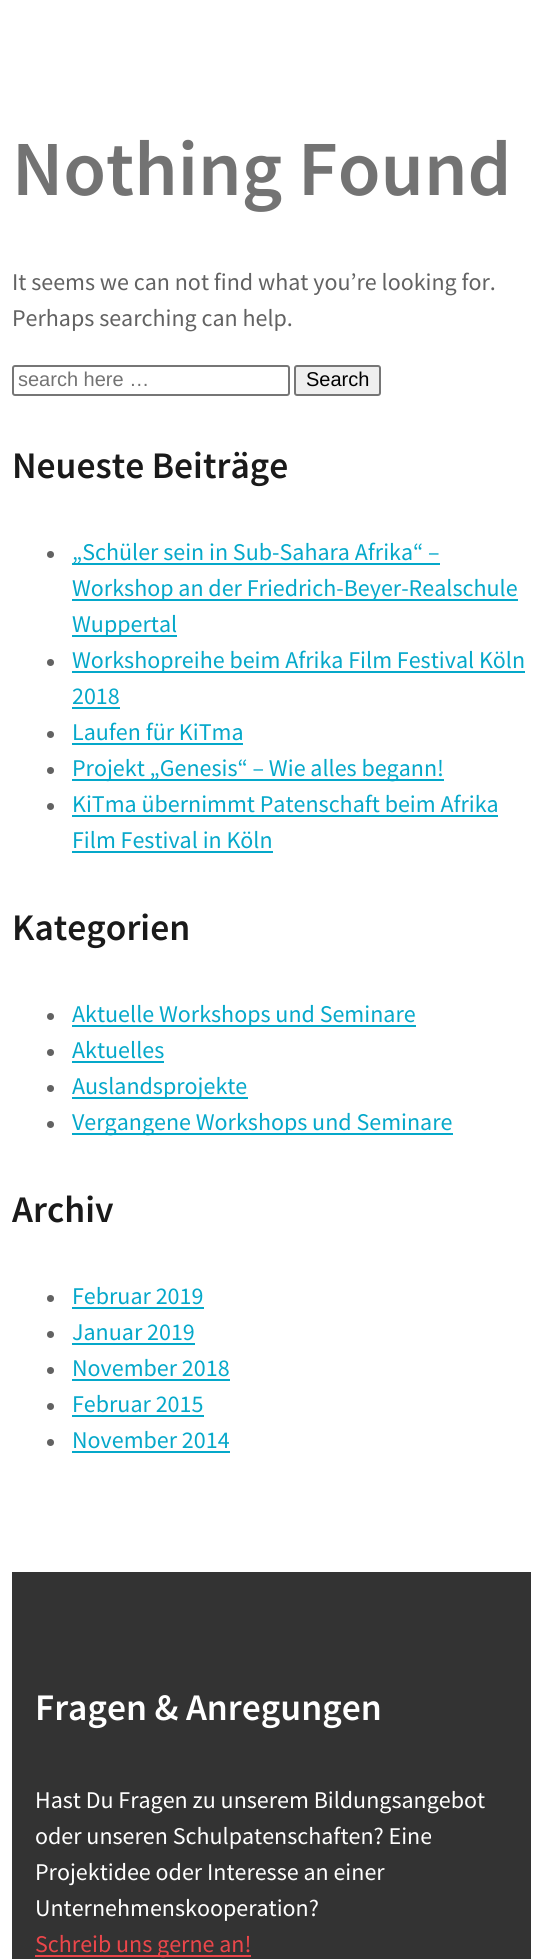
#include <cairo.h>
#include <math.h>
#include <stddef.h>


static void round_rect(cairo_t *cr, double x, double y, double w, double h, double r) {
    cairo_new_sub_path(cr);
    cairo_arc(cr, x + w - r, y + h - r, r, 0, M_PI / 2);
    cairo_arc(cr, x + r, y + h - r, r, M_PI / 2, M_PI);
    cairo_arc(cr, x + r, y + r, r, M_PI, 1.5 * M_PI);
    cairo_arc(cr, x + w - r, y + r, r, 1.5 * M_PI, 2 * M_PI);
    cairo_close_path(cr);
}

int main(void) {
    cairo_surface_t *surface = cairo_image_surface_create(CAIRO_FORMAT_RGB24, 542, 1959);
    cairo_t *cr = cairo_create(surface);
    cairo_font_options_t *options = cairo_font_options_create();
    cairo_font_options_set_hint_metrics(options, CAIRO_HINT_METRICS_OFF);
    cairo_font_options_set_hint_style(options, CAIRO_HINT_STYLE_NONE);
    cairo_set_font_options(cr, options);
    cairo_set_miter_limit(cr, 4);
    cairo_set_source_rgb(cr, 1, 1, 1);
    cairo_paint(cr);
    cairo_select_font_face(cr, "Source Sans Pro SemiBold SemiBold", CAIRO_FONT_SLANT_NORMAL, CAIRO_FONT_WEIGHT_NORMAL);
    cairo_set_font_size(cr, 78);
    cairo_set_source_rgb(cr, 0.451, 0.451, 0.451);
    cairo_move_to(cr, 12, 195);
    cairo_show_text(cr, "Nothing Found");
    cairo_select_font_face(cr, "Source Sans Pro", CAIRO_FONT_SLANT_NORMAL, CAIRO_FONT_WEIGHT_NORMAL);
    cairo_set_font_size(cr, 24);
    cairo_set_source_rgb(cr, 0.384, 0.384, 0.384);
    cairo_move_to(cr, 12, 290);
    cairo_show_text(cr, "It seems we can not find what you’re looking for.");
    cairo_move_to(cr, 12, 326);
    cairo_show_text(cr, "Perhaps searching can help.");
    round_rect(cr, 13, 366, 276, 29, 2);
    cairo_set_source_rgb(cr, 0.463, 0.463, 0.463);
    cairo_stroke(cr);
    cairo_select_font_face(cr, "Liberation Sans", CAIRO_FONT_SLANT_NORMAL, CAIRO_FONT_WEIGHT_NORMAL);
    cairo_set_font_size(cr, 20);
    cairo_set_source_rgb(cr, 0.451, 0.451, 0.451);
    cairo_move_to(cr, 18, 386);
    cairo_show_text(cr, "search here …");
    cairo_set_source_rgb(cr, 0.937, 0.937, 0.937);
    round_rect(cr, 295, 366, 85, 29, 2);
    cairo_fill_preserve(cr);
    cairo_set_source_rgb(cr, 0.463, 0.463, 0.463);
    cairo_stroke(cr);
    cairo_set_source_rgb(cr, 0, 0, 0);
    cairo_move_to(cr, 306, 386);
    cairo_show_text(cr, "Search");
    cairo_select_font_face(cr, "Source Sans Pro SemiBold SemiBold", CAIRO_FONT_SLANT_NORMAL, CAIRO_FONT_WEIGHT_NORMAL);
    cairo_set_font_size(cr, 37.5);
    cairo_set_source_rgb(cr, 0.102, 0.102, 0.102);
    cairo_move_to(cr, 12, 478);
    cairo_show_text(cr, "Neueste Beiträge");
    cairo_set_source_rgb(cr, 0.384, 0.384, 0.384);
    cairo_new_path(cr);
    cairo_arc(cr, 50.5, 554.5, 3.5, 0, 2 * M_PI);
    cairo_fill(cr);
    cairo_set_source_rgb(cr, 0.02, 0.659, 0.792);
    cairo_rectangle(cr, 72, 563, 368, 2);
    cairo_fill(cr);
    cairo_select_font_face(cr, "Source Sans Pro", CAIRO_FONT_SLANT_NORMAL, CAIRO_FONT_WEIGHT_NORMAL);
    cairo_set_font_size(cr, 24);
    cairo_move_to(cr, 72, 560);
    cairo_show_text(cr, "„Schüler sein in Sub-Sahara Afrika“ –");
    cairo_rectangle(cr, 72, 599, 446, 2);
    cairo_fill(cr);
    cairo_move_to(cr, 72, 596);
    cairo_show_text(cr, "Workshop an der Friedrich-Beyer-Realschule");
    cairo_rectangle(cr, 72, 635, 105, 2);
    cairo_fill(cr);
    cairo_move_to(cr, 72, 632);
    cairo_show_text(cr, "Wuppertal");
    cairo_set_source_rgb(cr, 0.384, 0.384, 0.384);
    cairo_new_path(cr);
    cairo_arc(cr, 50.5, 662.5, 3.5, 0, 2 * M_PI);
    cairo_fill(cr);
    cairo_set_source_rgb(cr, 0.02, 0.659, 0.792);
    cairo_rectangle(cr, 72, 671, 453, 2);
    cairo_fill(cr);
    cairo_move_to(cr, 72, 668);
    cairo_show_text(cr, "Workshopreihe beim Afrika Film Festival Köln");
    cairo_move_to(cr, 72, 704);
    cairo_show_text(cr, "2018");
    cairo_rectangle(cr, 72, 707, 48, 2);
    cairo_fill(cr);
    cairo_set_source_rgb(cr, 0.384, 0.384, 0.384);
    cairo_arc(cr, 50.5, 734.5, 3.5, 0, 2 * M_PI);
    cairo_fill(cr);
    cairo_set_source_rgb(cr, 0.02, 0.659, 0.792);
    cairo_move_to(cr, 72, 740);
    cairo_show_text(cr, "Laufen für KiTma");
    cairo_rectangle(cr, 72, 743, 171, 2);
    cairo_fill(cr);
    cairo_set_source_rgb(cr, 0.384, 0.384, 0.384);
    cairo_arc(cr, 50.5, 770.5, 3.5, 0, 2 * M_PI);
    cairo_fill(cr);
    cairo_set_source_rgb(cr, 0.02, 0.659, 0.792);
    cairo_rectangle(cr, 72, 779, 372, 2);
    cairo_fill(cr);
    cairo_move_to(cr, 72, 776);
    cairo_show_text(cr, "Projekt „Genesis“ – Wie alles begann!");
    cairo_set_source_rgb(cr, 0.384, 0.384, 0.384);
    cairo_new_path(cr);
    cairo_arc(cr, 50.5, 806.5, 3.5, 0, 2 * M_PI);
    cairo_fill(cr);
    cairo_set_source_rgb(cr, 0.02, 0.659, 0.792);
    cairo_move_to(cr, 72, 812);
    cairo_show_text(cr, "KiTma übernimmt Patenschaft beim Afrika");
    cairo_rectangle(cr, 72, 815, 426, 2);
    cairo_fill(cr);
    cairo_move_to(cr, 72, 848);
    cairo_show_text(cr, "Film Festival in Köln");
    cairo_rectangle(cr, 72, 851, 201, 2);
    cairo_fill(cr);
    cairo_select_font_face(cr, "Source Sans Pro SemiBold SemiBold", CAIRO_FONT_SLANT_NORMAL, CAIRO_FONT_WEIGHT_NORMAL);
    cairo_set_font_size(cr, 37.5);
    cairo_set_source_rgb(cr, 0.102, 0.102, 0.102);
    cairo_move_to(cr, 12, 940);
    cairo_show_text(cr, "Kategorien");
    cairo_set_source_rgb(cr, 0.384, 0.384, 0.384);
    cairo_new_path(cr);
    cairo_arc(cr, 50.5, 1016.5, 3.5, 0, 2 * M_PI);
    cairo_fill(cr);
    cairo_set_source_rgb(cr, 0.02, 0.659, 0.792);
    cairo_rectangle(cr, 72, 1025, 344, 2);
    cairo_fill(cr);
    cairo_select_font_face(cr, "Source Sans Pro", CAIRO_FONT_SLANT_NORMAL, CAIRO_FONT_WEIGHT_NORMAL);
    cairo_set_font_size(cr, 24);
    cairo_move_to(cr, 72, 1022);
    cairo_show_text(cr, "Aktuelle Workshops und Seminare");
    cairo_set_source_rgb(cr, 0.384, 0.384, 0.384);
    cairo_new_path(cr);
    cairo_arc(cr, 50.5, 1052.5, 3.5, 0, 2 * M_PI);
    cairo_fill(cr);
    cairo_set_source_rgb(cr, 0.02, 0.659, 0.792);
    cairo_move_to(cr, 72, 1058);
    cairo_show_text(cr, "Aktuelles");
    cairo_rectangle(cr, 72, 1061, 92, 2);
    cairo_fill(cr);
    cairo_set_source_rgb(cr, 0.384, 0.384, 0.384);
    cairo_arc(cr, 50.5, 1088.5, 3.5, 0, 2 * M_PI);
    cairo_fill(cr);
    cairo_set_source_rgb(cr, 0.02, 0.659, 0.792);
    cairo_rectangle(cr, 72, 1097, 176, 2);
    cairo_fill(cr);
    cairo_move_to(cr, 72, 1094);
    cairo_show_text(cr, "Auslandsprojekte");
    cairo_set_source_rgb(cr, 0.384, 0.384, 0.384);
    cairo_new_path(cr);
    cairo_arc(cr, 50.5, 1124.5, 3.5, 0, 2 * M_PI);
    cairo_fill(cr);
    cairo_set_source_rgb(cr, 0.02, 0.659, 0.792);
    cairo_rectangle(cr, 72, 1133, 381, 2);
    cairo_fill(cr);
    cairo_move_to(cr, 72, 1130);
    cairo_show_text(cr, "Vergangene Workshops und Seminare");
    cairo_select_font_face(cr, "Source Sans Pro SemiBold SemiBold", CAIRO_FONT_SLANT_NORMAL, CAIRO_FONT_WEIGHT_NORMAL);
    cairo_set_font_size(cr, 37.5);
    cairo_set_source_rgb(cr, 0.102, 0.102, 0.102);
    cairo_move_to(cr, 12, 1222);
    cairo_show_text(cr, "Archiv");
    cairo_set_source_rgb(cr, 0.384, 0.384, 0.384);
    cairo_new_path(cr);
    cairo_arc(cr, 50.5, 1298.5, 3.5, 0, 2 * M_PI);
    cairo_fill(cr);
    cairo_select_font_face(cr, "Source Sans Pro", CAIRO_FONT_SLANT_NORMAL, CAIRO_FONT_WEIGHT_NORMAL);
    cairo_set_font_size(cr, 24);
    cairo_set_source_rgb(cr, 0.02, 0.659, 0.792);
    cairo_move_to(cr, 72, 1304);
    cairo_show_text(cr, "Februar 2019");
    cairo_rectangle(cr, 72, 1307, 132, 2);
    cairo_fill(cr);
    cairo_set_source_rgb(cr, 0.384, 0.384, 0.384);
    cairo_arc(cr, 50.5, 1334.5, 3.5, 0, 2 * M_PI);
    cairo_fill(cr);
    cairo_set_source_rgb(cr, 0.02, 0.659, 0.792);
    cairo_move_to(cr, 72, 1340);
    cairo_show_text(cr, "Januar 2019");
    cairo_rectangle(cr, 72, 1343, 123, 2);
    cairo_fill(cr);
    cairo_set_source_rgb(cr, 0.384, 0.384, 0.384);
    cairo_arc(cr, 50.5, 1370.5, 3.5, 0, 2 * M_PI);
    cairo_fill(cr);
    cairo_set_source_rgb(cr, 0.02, 0.659, 0.792);
    cairo_move_to(cr, 72, 1376);
    cairo_show_text(cr, "November 2018");
    cairo_rectangle(cr, 72, 1379, 158, 2);
    cairo_fill(cr);
    cairo_set_source_rgb(cr, 0.384, 0.384, 0.384);
    cairo_arc(cr, 50.5, 1406.5, 3.5, 0, 2 * M_PI);
    cairo_fill(cr);
    cairo_set_source_rgb(cr, 0.02, 0.659, 0.792);
    cairo_move_to(cr, 72, 1412);
    cairo_show_text(cr, "Februar 2015");
    cairo_rectangle(cr, 72, 1415, 132, 2);
    cairo_fill(cr);
    cairo_set_source_rgb(cr, 0.384, 0.384, 0.384);
    cairo_arc(cr, 50.5, 1442.5, 3.5, 0, 2 * M_PI);
    cairo_fill(cr);
    cairo_set_source_rgb(cr, 0.02, 0.659, 0.792);
    cairo_move_to(cr, 72, 1448);
    cairo_show_text(cr, "November 2014");
    cairo_rectangle(cr, 72, 1451, 158, 2);
    cairo_fill(cr);
    cairo_set_source_rgb(cr, 0.2, 0.2, 0.2);
    cairo_rectangle(cr, 12, 1572, 519, 387);
    cairo_fill(cr);
    cairo_select_font_face(cr, "Source Sans Pro SemiBold SemiBold", CAIRO_FONT_SLANT_NORMAL, CAIRO_FONT_WEIGHT_NORMAL);
    cairo_set_font_size(cr, 37.5);
    cairo_set_source_rgb(cr, 1, 1, 1);
    cairo_move_to(cr, 35, 1720);
    cairo_show_text(cr, "Fragen & Anregungen");
    cairo_select_font_face(cr, "Source Sans Pro", CAIRO_FONT_SLANT_NORMAL, CAIRO_FONT_WEIGHT_NORMAL);
    cairo_set_font_size(cr, 24);
    cairo_move_to(cr, 35, 1808);
    cairo_show_text(cr, "Hast Du Fragen zu unserem Bildungsangebot");
    cairo_move_to(cr, 35, 1844);
    cairo_show_text(cr, "oder unseren Schulpatenschaften? Eine");
    cairo_move_to(cr, 35, 1880);
    cairo_show_text(cr, "Projektidee oder Interesse an einer");
    cairo_move_to(cr, 35, 1916);
    cairo_show_text(cr, "Unternehmenskooperation?");
    cairo_set_source_rgb(cr, 0.922, 0.275, 0.29);
    cairo_rectangle(cr, 35, 1955, 216, 2);
    cairo_fill(cr);
    cairo_move_to(cr, 35, 1952);
    cairo_show_text(cr, "Schreib uns gerne an!");
    cairo_surface_write_to_png(surface, "page.png");
    cairo_font_options_destroy(options);
    cairo_destroy(cr);
    cairo_surface_destroy(surface);
    return 0;
}
